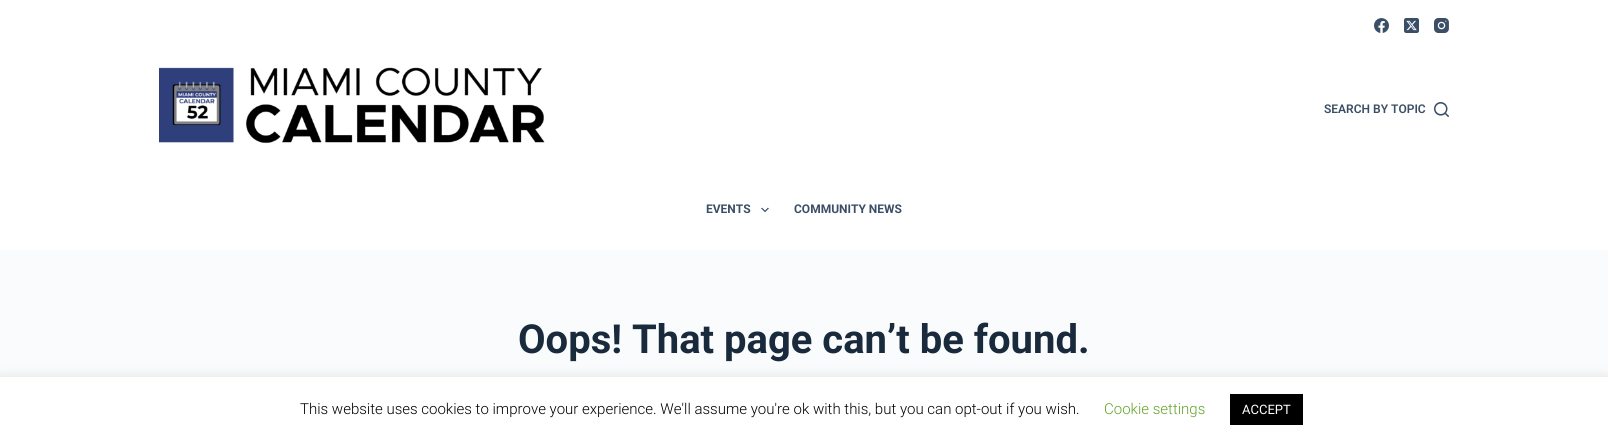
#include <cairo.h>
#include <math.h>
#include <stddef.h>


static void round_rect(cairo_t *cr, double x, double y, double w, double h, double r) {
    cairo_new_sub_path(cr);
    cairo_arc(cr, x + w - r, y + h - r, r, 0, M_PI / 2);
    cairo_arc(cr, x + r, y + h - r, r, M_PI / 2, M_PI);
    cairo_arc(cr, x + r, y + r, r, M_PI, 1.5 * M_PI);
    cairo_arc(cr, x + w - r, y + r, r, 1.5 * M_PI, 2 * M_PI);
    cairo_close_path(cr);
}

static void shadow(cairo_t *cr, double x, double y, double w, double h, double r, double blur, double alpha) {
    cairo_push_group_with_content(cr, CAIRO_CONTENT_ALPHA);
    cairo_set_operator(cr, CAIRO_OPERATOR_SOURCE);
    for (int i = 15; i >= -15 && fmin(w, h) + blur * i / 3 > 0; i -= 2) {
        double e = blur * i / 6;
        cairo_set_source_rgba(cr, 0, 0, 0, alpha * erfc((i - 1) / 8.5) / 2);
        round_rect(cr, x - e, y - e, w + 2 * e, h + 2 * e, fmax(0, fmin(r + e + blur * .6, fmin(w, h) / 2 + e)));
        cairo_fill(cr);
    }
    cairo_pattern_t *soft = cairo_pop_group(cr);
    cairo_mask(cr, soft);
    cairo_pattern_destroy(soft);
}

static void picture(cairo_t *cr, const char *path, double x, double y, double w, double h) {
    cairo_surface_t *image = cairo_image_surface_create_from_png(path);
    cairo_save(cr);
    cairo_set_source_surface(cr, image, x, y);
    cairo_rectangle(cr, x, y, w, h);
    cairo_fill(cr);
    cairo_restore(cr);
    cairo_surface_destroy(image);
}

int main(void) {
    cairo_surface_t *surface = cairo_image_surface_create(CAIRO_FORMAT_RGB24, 1608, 442);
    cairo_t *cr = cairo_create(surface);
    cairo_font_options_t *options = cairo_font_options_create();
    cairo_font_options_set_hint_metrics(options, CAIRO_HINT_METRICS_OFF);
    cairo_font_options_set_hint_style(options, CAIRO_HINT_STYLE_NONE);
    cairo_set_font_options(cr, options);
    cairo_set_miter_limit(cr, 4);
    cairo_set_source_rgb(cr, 0.98, 0.984, 0.988);
    cairo_paint(cr);
    cairo_set_source_rgb(cr, 1, 1, 1);
    cairo_rectangle(cr, 0, 0, 1608, 250);
    cairo_fill(cr);
    picture(cr, "img1.png", 1374, 18, 15, 15);
    picture(cr, "img2.png", 1404, 18, 15, 15);
    picture(cr, "img3.png", 1434, 18, 15, 15);
    picture(cr, "img4.png", 159, 67, 386, 77);
    cairo_select_font_face(cr, "Roboto SemiBold", CAIRO_FONT_SLANT_NORMAL, CAIRO_FONT_WEIGHT_NORMAL);
    cairo_set_font_size(cr, 12);
    cairo_set_source_rgb(cr, 0.227, 0.31, 0.4);
    cairo_move_to(cr, 1324, 113);
    cairo_show_text(cr, "SEARCH BY TOPIC");
    picture(cr, "img5.png", 1434, 102, 15, 15);
    cairo_select_font_face(cr, "Roboto", CAIRO_FONT_SLANT_NORMAL, CAIRO_FONT_WEIGHT_BOLD);
    cairo_move_to(cr, 706, 213);
    cairo_show_text(cr, "EVENTS");
    picture(cr, "img6.png", 761, 207, 8, 6);
    cairo_move_to(cr, 794, 213);
    cairo_show_text(cr, "COMMUNITY NEWS");
    cairo_set_font_size(cr, 40);
    cairo_set_source_rgb(cr, 0.098, 0.165, 0.239);
    cairo_move_to(cr, 518, 353);
    cairo_show_text(cr, "Oops! That page can’t be found.");
    cairo_set_source_rgb(cr, 0.675, 0.671, 0.671);
    shadow(cr, 0, 376, 1608, 65, 0, 5, 0.3);
    cairo_set_source_rgb(cr, 1, 1, 1);
    cairo_rectangle(cr, 0, 377, 1608, 65);
    cairo_fill(cr);
    cairo_select_font_face(cr, "Roboto Light", CAIRO_FONT_SLANT_NORMAL, CAIRO_FONT_WEIGHT_NORMAL);
    cairo_set_font_size(cr, 15);
    cairo_set_source_rgb(cr, 0, 0, 0);
    cairo_move_to(cr, 300, 414);
    cairo_show_text(cr, "This website uses cookies to improve your experience. We'll assume you're ok with this, but you can opt-out if you wish.");
    cairo_set_source_rgb(cr, 0.384, 0.639, 0.161);
    cairo_move_to(cr, 1104, 414);
    cairo_show_text(cr, "Cookie settings");
    cairo_set_source_rgb(cr, 0, 0, 0);
    cairo_rectangle(cr, 1230, 394, 73, 31);
    cairo_fill(cr);
    cairo_select_font_face(cr, "Roboto", CAIRO_FONT_SLANT_NORMAL, CAIRO_FONT_WEIGHT_NORMAL);
    cairo_set_font_size(cr, 13);
    cairo_set_source_rgb(cr, 1, 1, 1);
    cairo_move_to(cr, 1242, 414);
    cairo_show_text(cr, "ACCEPT");
    cairo_surface_write_to_png(surface, "page.png");
    cairo_font_options_destroy(options);
    cairo_destroy(cr);
    cairo_surface_destroy(surface);
    return 0;
}
